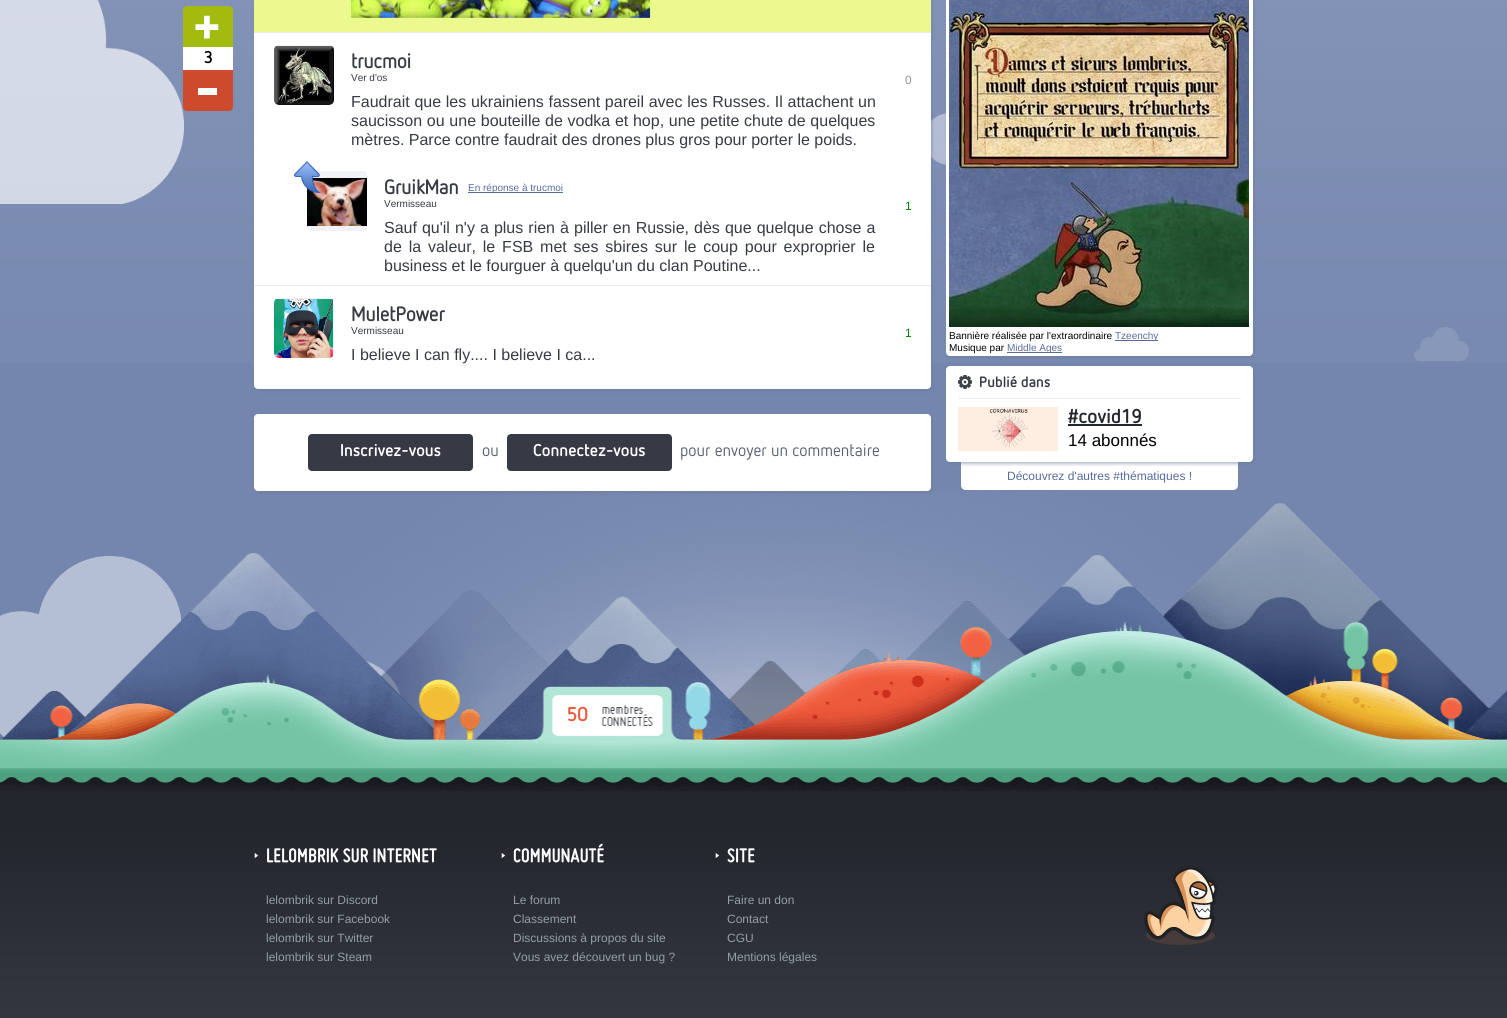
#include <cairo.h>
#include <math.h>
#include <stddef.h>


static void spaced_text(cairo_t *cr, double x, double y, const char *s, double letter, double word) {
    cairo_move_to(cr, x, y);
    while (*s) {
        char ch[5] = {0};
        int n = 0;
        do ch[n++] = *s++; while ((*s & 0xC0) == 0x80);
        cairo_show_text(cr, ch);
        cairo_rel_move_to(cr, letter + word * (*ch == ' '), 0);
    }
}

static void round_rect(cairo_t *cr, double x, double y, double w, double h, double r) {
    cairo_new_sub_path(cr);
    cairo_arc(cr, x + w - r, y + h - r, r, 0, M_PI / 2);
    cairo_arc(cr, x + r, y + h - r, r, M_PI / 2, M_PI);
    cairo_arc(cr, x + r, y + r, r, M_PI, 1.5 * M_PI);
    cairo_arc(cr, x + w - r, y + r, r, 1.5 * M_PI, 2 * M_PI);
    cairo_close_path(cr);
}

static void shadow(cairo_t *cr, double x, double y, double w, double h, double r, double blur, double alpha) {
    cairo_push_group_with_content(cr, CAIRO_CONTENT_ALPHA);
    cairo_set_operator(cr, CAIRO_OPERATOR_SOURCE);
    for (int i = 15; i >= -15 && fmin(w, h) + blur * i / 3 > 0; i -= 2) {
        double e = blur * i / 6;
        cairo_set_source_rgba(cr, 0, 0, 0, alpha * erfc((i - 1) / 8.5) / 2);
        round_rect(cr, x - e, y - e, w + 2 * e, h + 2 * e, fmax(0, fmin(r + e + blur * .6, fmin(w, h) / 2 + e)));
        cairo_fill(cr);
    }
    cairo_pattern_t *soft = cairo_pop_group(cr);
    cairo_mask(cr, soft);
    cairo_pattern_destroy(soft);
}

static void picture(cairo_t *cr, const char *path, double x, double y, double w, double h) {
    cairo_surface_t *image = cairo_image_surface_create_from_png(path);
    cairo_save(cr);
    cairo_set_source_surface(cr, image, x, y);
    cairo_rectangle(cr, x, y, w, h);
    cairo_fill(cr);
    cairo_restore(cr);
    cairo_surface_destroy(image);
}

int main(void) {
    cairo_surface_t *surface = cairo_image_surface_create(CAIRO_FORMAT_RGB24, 1507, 1018);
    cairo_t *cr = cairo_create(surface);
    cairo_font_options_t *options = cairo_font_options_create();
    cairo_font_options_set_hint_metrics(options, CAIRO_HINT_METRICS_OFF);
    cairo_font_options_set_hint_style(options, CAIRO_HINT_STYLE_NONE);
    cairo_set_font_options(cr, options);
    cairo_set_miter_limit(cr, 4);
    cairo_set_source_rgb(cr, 0.455, 0.525, 0.682);
    cairo_paint(cr);
    picture(cr, "img2.png", 0, 0, 1507, 363);
    picture(cr, "img1.png", 0, 0, 184, 204);
    cairo_set_source_rgb(cr, 0.639, 0.733, 0.059);
    cairo_new_path(cr);
    cairo_move_to(cr, 187, 6);
    cairo_line_to(cr, 229, 6);
    cairo_curve_to(cr, 231, 6, 233, 8, 233, 10);
    cairo_line_to(cr, 233, 47);
    cairo_line_to(cr, 183, 47);
    cairo_line_to(cr, 183, 10);
    cairo_curve_to(cr, 183, 8, 185, 6, 187, 6);
    cairo_close_path(cr);
    cairo_fill(cr);
    picture(cr, "img3.png", 195, 15, 24, 24);
    cairo_set_source_rgb(cr, 1, 1, 1);
    cairo_rectangle(cr, 183, 47, 50, 23);
    cairo_fill(cr);
    cairo_select_font_face(cr, "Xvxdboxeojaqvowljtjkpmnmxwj", CAIRO_FONT_SLANT_NORMAL, CAIRO_FONT_WEIGHT_BOLD);
    cairo_set_font_size(cr, 17);
    cairo_set_source_rgb(cr, 0, 0, 0);
    cairo_move_to(cr, 204, 63);
    cairo_show_text(cr, "3");
    cairo_set_source_rgb(cr, 0.808, 0.29, 0.173);
    cairo_new_path(cr);
    cairo_move_to(cr, 183, 70);
    cairo_line_to(cr, 233, 70);
    cairo_line_to(cr, 233, 107);
    cairo_curve_to(cr, 233, 109, 231, 111, 229, 111);
    cairo_line_to(cr, 187, 111);
    cairo_curve_to(cr, 185, 111, 183, 109, 183, 107);
    cairo_close_path(cr);
    cairo_fill(cr);
    cairo_set_source_rgb(cr, 1, 1, 1);
    cairo_rectangle(cr, 198, 88, 19, 7);
    cairo_fill(cr);
    picture(cr, "img13.png", 931, 113, 15, 52);
    cairo_set_source_rgb(cr, 0.404, 0.467, 0.588);
    shadow(cr, 255, -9, 677, 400, 4, 1.5, 0.5);
    cairo_set_source_rgb(cr, 1, 1, 1);
    round_rect(cr, 254, -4, 677, 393, 4);
    cairo_fill(cr);
    cairo_set_source_rgb(cr, 0.922, 0.976, 0.557);
    cairo_rectangle(cr, 254, 0, 677, 32);
    cairo_fill(cr);
    picture(cr, "img4.png", 351, 0, 300, 18);
    cairo_set_source_rgb(cr, 0.918, 0.918, 0.918);
    cairo_rectangle(cr, 254, 32, 677, 1);
    cairo_fill(cr);
    cairo_set_source_rgb(cr, 0.941, 0.949, 0.961);
    round_rect(cr, 274, 45, 60, 60, 5);
    cairo_fill(cr);
    picture(cr, "img5.png", 274, 46, 60, 59);
    cairo_select_font_face(cr, "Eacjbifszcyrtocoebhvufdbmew", CAIRO_FONT_SLANT_NORMAL, CAIRO_FONT_WEIGHT_BOLD);
    cairo_set_font_size(cr, 20);
    cairo_set_source_rgb(cr, 0.216, 0.231, 0.263);
    cairo_move_to(cr, 351, 68);
    cairo_show_text(cr, "trucmoi");
    cairo_select_font_face(cr, "Liberation Sans", CAIRO_FONT_SLANT_NORMAL, CAIRO_FONT_WEIGHT_NORMAL);
    cairo_set_font_size(cr, 10);
    cairo_move_to(cr, 351, 81);
    cairo_show_text(cr, "Ver d'os");
    cairo_set_font_size(cr, 12);
    cairo_set_source_rgb(cr, 0.576, 0.576, 0.576);
    cairo_move_to(cr, 905, 84);
    cairo_show_text(cr, "0");
    cairo_set_font_size(cr, 16);
    cairo_set_source_rgb(cr, 0.216, 0.231, 0.263);
    spaced_text(cr, 351, 107, "Faudrait que les ukrainiens fassent pareil avec les Russes. Il attachent un", 0, 0.25);
    spaced_text(cr, 351, 126, "saucisson ou une bouteille de vodka et hop, une petite chute de quelques", 0, 0.25);
    cairo_move_to(cr, 351, 145);
    cairo_show_text(cr, "mètres. Parce contre faudrait des drones plus gros pour porter le poids.");
    cairo_set_source_rgb(cr, 0.941, 0.949, 0.961);
    round_rect(cr, 307, 171, 60, 60, 5);
    cairo_fill(cr);
    picture(cr, "img7.png", 307, 178, 60, 48);
    picture(cr, "img6.png", 294, 161, 27, 32);
    cairo_select_font_face(cr, "Eacjbifszcyrtocoebhvufdbmew", CAIRO_FONT_SLANT_NORMAL, CAIRO_FONT_WEIGHT_BOLD);
    cairo_set_font_size(cr, 20);
    cairo_set_source_rgb(cr, 0.216, 0.231, 0.263);
    cairo_move_to(cr, 384, 194);
    cairo_show_text(cr, "GruikMan");
    cairo_set_source_rgb(cr, 0.345, 0.424, 0.6);
    cairo_rectangle(cr, 468, 192, 95, 1);
    cairo_fill(cr);
    cairo_select_font_face(cr, "Liberation Sans", CAIRO_FONT_SLANT_NORMAL, CAIRO_FONT_WEIGHT_NORMAL);
    cairo_set_font_size(cr, 10);
    cairo_move_to(cr, 468, 191);
    cairo_show_text(cr, "En réponse à trucmoi");
    cairo_set_source_rgb(cr, 0.216, 0.231, 0.263);
    cairo_move_to(cr, 384, 207);
    cairo_show_text(cr, "Vermisseau");
    cairo_set_font_size(cr, 12);
    cairo_set_source_rgb(cr, 0, 0.502, 0);
    cairo_move_to(cr, 905, 210);
    cairo_show_text(cr, "1");
    cairo_set_font_size(cr, 16);
    cairo_set_source_rgb(cr, 0.216, 0.231, 0.263);
    spaced_text(cr, 384, 233, "Sauf qu'il n'y a plus rien à piller en Russie, dès que quelque chose a", 0, 0.6);
    spaced_text(cr, 384, 252, "de la valeur, le FSB met ses sbires sur le coup pour exproprier le", 0, 2.4);
    cairo_move_to(cr, 384, 271);
    cairo_show_text(cr, "business et le fourguer à quelqu'un du clan Poutine...");
    cairo_set_source_rgb(cr, 0.918, 0.918, 0.918);
    cairo_rectangle(cr, 254, 285, 677, 1);
    cairo_fill(cr);
    cairo_set_source_rgb(cr, 0.941, 0.949, 0.961);
    round_rect(cr, 274, 298, 60, 60, 5);
    cairo_fill(cr);
    picture(cr, "img8.png", 274, 299, 59, 59);
    cairo_select_font_face(cr, "Eacjbifszcyrtocoebhvufdbmew", CAIRO_FONT_SLANT_NORMAL, CAIRO_FONT_WEIGHT_BOLD);
    cairo_set_font_size(cr, 20);
    cairo_set_source_rgb(cr, 0.216, 0.231, 0.263);
    cairo_move_to(cr, 351, 321);
    cairo_show_text(cr, "MuletPower");
    cairo_select_font_face(cr, "Liberation Sans", CAIRO_FONT_SLANT_NORMAL, CAIRO_FONT_WEIGHT_NORMAL);
    cairo_set_font_size(cr, 10);
    cairo_move_to(cr, 351, 334);
    cairo_show_text(cr, "Vermisseau");
    cairo_set_font_size(cr, 12);
    cairo_set_source_rgb(cr, 0, 0.502, 0);
    cairo_move_to(cr, 905, 337);
    cairo_show_text(cr, "1");
    cairo_set_font_size(cr, 16);
    cairo_set_source_rgb(cr, 0.216, 0.231, 0.263);
    cairo_move_to(cr, 351, 360);
    cairo_show_text(cr, "I believe I can fly.... I believe I ca...");
    picture(cr, "img14.png", 0, 556, 182, 181);
    picture(cr, "img15.png", 364, 660, 69, 68);
    picture(cr, "img12.png", 0, 491, 1507, 300);
    cairo_set_source_rgb(cr, 0.404, 0.467, 0.588);
    shadow(cr, 255, 416, 677, 77, 4, 1.5, 0.5);
    cairo_set_source_rgb(cr, 1, 1, 1);
    round_rect(cr, 254, 414, 677, 77, 4);
    cairo_fill(cr);
    cairo_set_source_rgb(cr, 0.212, 0.227, 0.271);
    round_rect(cr, 308, 434, 165, 37, 4);
    cairo_fill(cr);
    cairo_select_font_face(cr, "Xvxdboxeojaqvowljtjkpmnmxwj", CAIRO_FONT_SLANT_NORMAL, CAIRO_FONT_WEIGHT_BOLD);
    cairo_set_font_size(cr, 17);
    cairo_set_source_rgb(cr, 1, 1, 1);
    cairo_move_to(cr, 340, 456);
    cairo_show_text(cr, "Inscrivez-vous");
    cairo_select_font_face(cr, "Eacjbifszcyrtocoebhvufdbmew", CAIRO_FONT_SLANT_NORMAL, CAIRO_FONT_WEIGHT_NORMAL);
    cairo_set_source_rgb(cr, 0.341, 0.38, 0.435);
    cairo_move_to(cr, 482, 456);
    cairo_show_text(cr, "ou");
    cairo_set_source_rgb(cr, 0.212, 0.227, 0.271);
    round_rect(cr, 507, 434, 165, 37, 4);
    cairo_fill(cr);
    cairo_select_font_face(cr, "Xvxdboxeojaqvowljtjkpmnmxwj", CAIRO_FONT_SLANT_NORMAL, CAIRO_FONT_WEIGHT_BOLD);
    cairo_set_source_rgb(cr, 1, 1, 1);
    cairo_move_to(cr, 533, 456);
    cairo_show_text(cr, "Connectez-vous");
    cairo_select_font_face(cr, "Eacjbifszcyrtocoebhvufdbmew", CAIRO_FONT_SLANT_NORMAL, CAIRO_FONT_WEIGHT_NORMAL);
    cairo_set_source_rgb(cr, 0.341, 0.38, 0.435);
    cairo_move_to(cr, 680, 456);
    cairo_show_text(cr, "pour envoyer un commentaire");
    cairo_set_source_rgb(cr, 0.404, 0.467, 0.588);
    shadow(cr, 947, -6, 307, 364, 4, 1.5, 0.5);
    cairo_set_source_rgb(cr, 1, 1, 1);
    round_rect(cr, 946, -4, 307, 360, 4);
    cairo_fill(cr);
    picture(cr, "img9.png", 949, 0, 300, 327);
    cairo_select_font_face(cr, "Liberation Sans", CAIRO_FONT_SLANT_NORMAL, CAIRO_FONT_WEIGHT_NORMAL);
    cairo_set_font_size(cr, 10);
    cairo_set_source_rgb(cr, 0, 0, 0);
    cairo_move_to(cr, 949, 339);
    cairo_show_text(cr, "Bannière réalisée par l'extraordinaire");
    cairo_set_source_rgb(cr, 0.345, 0.424, 0.6);
    cairo_rectangle(cr, 1115, 340, 43, 1);
    cairo_fill(cr);
    cairo_move_to(cr, 1115, 339);
    cairo_show_text(cr, "Tzeenchy");
    cairo_set_source_rgb(cr, 0, 0, 0);
    cairo_move_to(cr, 949, 351);
    cairo_show_text(cr, "Musique par");
    cairo_set_source_rgb(cr, 0.345, 0.424, 0.6);
    cairo_rectangle(cr, 1007, 352, 55, 1);
    cairo_fill(cr);
    cairo_move_to(cr, 1007, 351);
    cairo_show_text(cr, "Middle Ages");
    cairo_set_source_rgb(cr, 1, 1, 1);
    cairo_new_path(cr);
    cairo_move_to(cr, 961, 462);
    cairo_line_to(cr, 1238, 462);
    cairo_line_to(cr, 1238, 485);
    cairo_curve_to(cr, 1238, 488, 1236, 490, 1233, 490);
    cairo_line_to(cr, 966, 490);
    cairo_curve_to(cr, 963, 490, 961, 488, 961, 485);
    cairo_close_path(cr);
    cairo_fill(cr);
    cairo_set_source_rgb(cr, 0.404, 0.467, 0.588);
    shadow(cr, 947, 368, 307, 96, 4, 1.5, 0.5);
    cairo_set_source_rgb(cr, 1, 1, 1);
    round_rect(cr, 946, 366, 307, 96, 4);
    cairo_fill(cr);
    picture(cr, "img10.png", 958, 375, 14, 14);
    cairo_set_source_rgb(cr, 0.933, 0.933, 0.933);
    cairo_rectangle(cr, 958, 398, 283, 1);
    cairo_fill(cr);
    cairo_select_font_face(cr, "Xvxdboxeojaqvowljtjkpmnmxwj", CAIRO_FONT_SLANT_NORMAL, CAIRO_FONT_WEIGHT_BOLD);
    cairo_set_font_size(cr, 15);
    cairo_set_source_rgb(cr, 0.216, 0.231, 0.263);
    cairo_move_to(cr, 979, 387);
    cairo_show_text(cr, "Publié dans");
    picture(cr, "img11.png", 958, 407, 100, 44);
    cairo_set_font_size(cr, 20);
    cairo_set_source_rgb(cr, 0.141, 0.153, 0.18);
    cairo_move_to(cr, 1068, 423);
    cairo_show_text(cr, "#covid19");
    cairo_rectangle(cr, 1068, 424, 74, 2);
    cairo_fill(cr);
    cairo_select_font_face(cr, "Liberation Sans", CAIRO_FONT_SLANT_NORMAL, CAIRO_FONT_WEIGHT_NORMAL);
    cairo_set_font_size(cr, 17);
    cairo_set_source_rgb(cr, 0, 0, 0);
    cairo_move_to(cr, 1068, 446);
    cairo_show_text(cr, "14 abonnés");
    cairo_set_font_size(cr, 12);
    cairo_set_source_rgb(cr, 0.345, 0.424, 0.6);
    cairo_move_to(cr, 1007, 480);
    cairo_show_text(cr, "Découvrez d'autres #thématiques !");
    cairo_select_font_face(cr, "Xvxdboxeojaqvowljtjkpmnmxwj", CAIRO_FONT_SLANT_NORMAL, CAIRO_FONT_WEIGHT_BOLD);
    cairo_set_font_size(cr, 20);
    cairo_set_source_rgb(cr, 0.937, 0.349, 0.231);
    cairo_move_to(cr, 567, 721);
    cairo_show_text(cr, "50");
    picture(cr, "img16.png", 1414, 327, 55, 34);
    picture(cr, "img17.png", 0, 791, 1507, 227);
    picture(cr, "img18.png", 254, 853, 4, 5);
    cairo_select_font_face(cr, "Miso", CAIRO_FONT_SLANT_ITALIC, CAIRO_FONT_WEIGHT_BOLD);
    cairo_set_font_size(cr, 21);
    cairo_set_source_rgb(cr, 1, 1, 1);
    cairo_move_to(cr, 266, 862);
    cairo_show_text(cr, "LELOMBRIK SUR INTERNET");
    cairo_select_font_face(cr, "Liberation Sans", CAIRO_FONT_SLANT_NORMAL, CAIRO_FONT_WEIGHT_NORMAL);
    cairo_set_font_size(cr, 12);
    cairo_set_source_rgb(cr, 0.584, 0.62, 0.647);
    cairo_move_to(cr, 266, 904);
    cairo_show_text(cr, "lelombrik sur Discord");
    cairo_move_to(cr, 266, 923);
    cairo_show_text(cr, "lelombrik sur Facebook");
    cairo_move_to(cr, 266, 942);
    cairo_show_text(cr, "lelombrik sur Twitter");
    cairo_move_to(cr, 266, 961);
    cairo_show_text(cr, "lelombrik sur Steam");
    picture(cr, "img18.png", 501, 853, 4, 5);
    cairo_select_font_face(cr, "Miso", CAIRO_FONT_SLANT_ITALIC, CAIRO_FONT_WEIGHT_BOLD);
    cairo_set_font_size(cr, 21);
    cairo_set_source_rgb(cr, 1, 1, 1);
    cairo_move_to(cr, 513, 862);
    cairo_show_text(cr, "COMMUNAUTÉ");
    cairo_select_font_face(cr, "Liberation Sans", CAIRO_FONT_SLANT_NORMAL, CAIRO_FONT_WEIGHT_NORMAL);
    cairo_set_font_size(cr, 12);
    cairo_set_source_rgb(cr, 0.584, 0.62, 0.647);
    cairo_move_to(cr, 513, 904);
    cairo_show_text(cr, "Le forum");
    cairo_move_to(cr, 513, 923);
    cairo_show_text(cr, "Classement");
    cairo_move_to(cr, 513, 942);
    cairo_show_text(cr, "Discussions à propos du site");
    cairo_move_to(cr, 513, 961);
    cairo_show_text(cr, "Vous avez découvert un bug ?");
    picture(cr, "img18.png", 715, 853, 4, 5);
    cairo_select_font_face(cr, "Miso", CAIRO_FONT_SLANT_ITALIC, CAIRO_FONT_WEIGHT_BOLD);
    cairo_set_font_size(cr, 21);
    cairo_set_source_rgb(cr, 1, 1, 1);
    cairo_move_to(cr, 727, 862);
    cairo_show_text(cr, "SITE");
    cairo_select_font_face(cr, "Liberation Sans", CAIRO_FONT_SLANT_NORMAL, CAIRO_FONT_WEIGHT_NORMAL);
    cairo_set_font_size(cr, 12);
    cairo_set_source_rgb(cr, 0.584, 0.62, 0.647);
    cairo_move_to(cr, 727, 904);
    cairo_show_text(cr, "Faire un don");
    cairo_move_to(cr, 727, 923);
    cairo_show_text(cr, "Contact");
    cairo_move_to(cr, 727, 942);
    cairo_show_text(cr, "CGU");
    cairo_move_to(cr, 727, 961);
    cairo_show_text(cr, "Mentions légales");
    picture(cr, "img19.png", 1144, 866, 74, 79);
    cairo_surface_write_to_png(surface, "page.png");
    cairo_font_options_destroy(options);
    cairo_destroy(cr);
    cairo_surface_destroy(surface);
    return 0;
}
